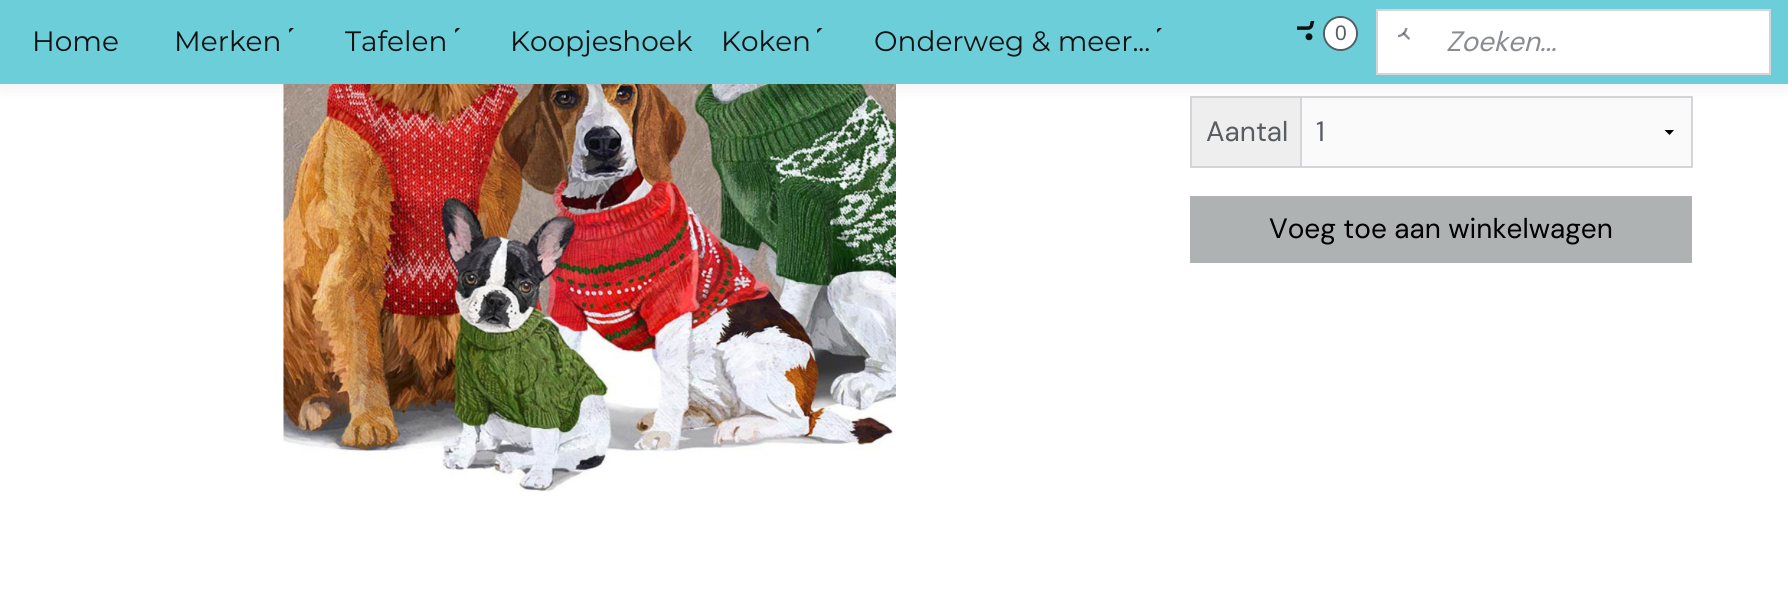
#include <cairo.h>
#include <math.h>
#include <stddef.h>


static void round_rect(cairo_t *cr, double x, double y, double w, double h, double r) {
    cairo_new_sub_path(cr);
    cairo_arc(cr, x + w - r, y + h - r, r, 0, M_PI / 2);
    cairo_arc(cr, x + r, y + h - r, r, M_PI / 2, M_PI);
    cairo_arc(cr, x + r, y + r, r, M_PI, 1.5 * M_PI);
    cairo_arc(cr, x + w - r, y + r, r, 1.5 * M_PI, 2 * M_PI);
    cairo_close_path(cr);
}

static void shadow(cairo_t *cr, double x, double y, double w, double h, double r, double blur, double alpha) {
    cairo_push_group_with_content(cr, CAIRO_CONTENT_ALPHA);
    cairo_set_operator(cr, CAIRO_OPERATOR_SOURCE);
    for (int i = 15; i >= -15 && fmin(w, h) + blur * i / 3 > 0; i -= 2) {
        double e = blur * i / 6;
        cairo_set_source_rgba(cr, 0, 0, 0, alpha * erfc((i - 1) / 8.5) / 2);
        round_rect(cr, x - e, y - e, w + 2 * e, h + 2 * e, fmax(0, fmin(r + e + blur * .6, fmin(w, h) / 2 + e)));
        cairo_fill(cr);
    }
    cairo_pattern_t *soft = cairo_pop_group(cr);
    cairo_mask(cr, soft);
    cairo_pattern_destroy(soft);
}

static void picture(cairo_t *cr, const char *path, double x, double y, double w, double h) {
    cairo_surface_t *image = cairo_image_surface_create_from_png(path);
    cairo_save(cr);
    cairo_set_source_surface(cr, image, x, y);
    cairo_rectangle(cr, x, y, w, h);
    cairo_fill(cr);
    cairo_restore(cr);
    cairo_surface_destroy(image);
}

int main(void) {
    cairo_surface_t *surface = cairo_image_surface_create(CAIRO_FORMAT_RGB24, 1788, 602);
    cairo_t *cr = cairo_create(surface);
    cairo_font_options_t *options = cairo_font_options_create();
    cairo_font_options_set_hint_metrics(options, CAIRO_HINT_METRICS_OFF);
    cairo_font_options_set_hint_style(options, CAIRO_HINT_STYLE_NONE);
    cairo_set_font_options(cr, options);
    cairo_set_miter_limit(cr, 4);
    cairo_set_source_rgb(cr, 1, 1, 1);
    cairo_paint(cr);
    picture(cr, "img6.png", 283, 84, 613, 408);
    cairo_set_source_rgb(cr, 0.827, 0.835, 0.851);
    cairo_rectangle(cr, 1300, 96, 2, 70);
    cairo_fill(cr);
    cairo_rectangle(cr, 1190, 96, 502, 2);
    cairo_fill(cr);
    cairo_rectangle(cr, 1691, 96, 2, 72);
    cairo_fill(cr);
    cairo_rectangle(cr, 1190, 166, 502, 2);
    cairo_fill(cr);
    cairo_rectangle(cr, 1190, 96, 2, 72);
    cairo_fill(cr);
    cairo_set_source_rgb(cr, 0.933, 0.933, 0.933);
    cairo_rectangle(cr, 1192, 98, 108, 68);
    cairo_fill(cr);
    cairo_set_source_rgb(cr, 0.98, 0.98, 0.98);
    cairo_rectangle(cr, 1302, 98, 389, 68);
    cairo_fill(cr);
    cairo_set_source_rgb(cr, 0, 0, 0);
    shadow(cr, 0, 0, 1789, 84, 0, 10.5, 0.08);
    cairo_set_source_rgb(cr, 0.424, 0.808, 0.851);
    cairo_rectangle(cr, 0, 0, 1788, 84);
    cairo_fill(cr);
    cairo_select_font_face(cr, "Montserrat", CAIRO_FONT_SLANT_NORMAL, CAIRO_FONT_WEIGHT_NORMAL);
    cairo_set_font_size(cr, 28);
    cairo_set_source_rgb(cr, 0.071, 0.071, 0.071);
    cairo_move_to(cr, 32, 51);
    cairo_show_text(cr, "Home");
    cairo_move_to(cr, 174, 51);
    cairo_show_text(cr, "Merken");
    picture(cr, "img1.png", 289, 28, 5, 5);
    cairo_move_to(cr, 345, 51);
    cairo_show_text(cr, "Tafelen");
    picture(cr, "img2.png", 455, 28, 5, 5);
    cairo_move_to(cr, 510, 51);
    cairo_show_text(cr, "Koopjeshoek");
    cairo_move_to(cr, 721, 51);
    cairo_show_text(cr, "Koken");
    picture(cr, "img3.png", 817, 28, 6, 5);
    cairo_move_to(cr, 874, 51);
    cairo_show_text(cr, "Onderweg & meer...");
    picture(cr, "img1.png", 1157, 28, 5, 5);
    picture(cr, "img4.png", 1297, 21, 18, 20);
    cairo_arc(cr, 1340.5, 33.5, 16.5, 0, 2 * M_PI);
    cairo_set_source_rgb(cr, 0.341, 0.357, 0.384);
    cairo_stroke(cr);
    cairo_set_source_rgb(cr, 1, 1, 1);
    cairo_arc(cr, 1340.5, 33.5, 15.5, 0, 2 * M_PI);
    cairo_fill(cr);
    cairo_select_font_face(cr, "Liberation Sans", CAIRO_FONT_SLANT_NORMAL, CAIRO_FONT_WEIGHT_NORMAL);
    cairo_set_font_size(cr, 21);
    cairo_set_source_rgb(cr, 0.341, 0.357, 0.384);
    cairo_move_to(cr, 1335, 40);
    cairo_show_text(cr, "0");
    cairo_set_source_rgb(cr, 1, 1, 1);
    cairo_rectangle(cr, 1377, 10, 393, 64);
    cairo_fill_preserve(cr);
    cairo_set_source_rgb(cr, 0.827, 0.835, 0.851);
    cairo_stroke(cr);
    picture(cr, "img5.png", 1398, 28, 12, 12);
    cairo_select_font_face(cr, "DM Sans", CAIRO_FONT_SLANT_ITALIC, CAIRO_FONT_WEIGHT_NORMAL);
    cairo_set_font_size(cr, 28);
    cairo_set_source_rgb(cr, 0.537, 0.549, 0.569);
    cairo_move_to(cr, 1446, 51);
    cairo_show_text(cr, "Zoeken...");
    cairo_select_font_face(cr, "DM Sans", CAIRO_FONT_SLANT_NORMAL, CAIRO_FONT_WEIGHT_NORMAL);
    cairo_set_source_rgb(cr, 0.341, 0.357, 0.384);
    cairo_move_to(cr, 1206, 141);
    cairo_show_text(cr, "Aantal");
    cairo_save(cr);
    cairo_rectangle(cr, 1649, 130, 42, 5);
    cairo_clip(cr);
    cairo_set_source_rgb(cr, 0, 0, 0);
    cairo_new_path(cr);
    cairo_move_to(cr, 1674.5, 129.5);
    cairo_line_to(cr, 1669.5, 135);
    cairo_line_to(cr, 1664, 129.5);
    cairo_close_path(cr);
    cairo_fill(cr);
    cairo_restore(cr);
    cairo_move_to(cr, 1316, 141);
    cairo_show_text(cr, "1");
    cairo_set_source_rgb(cr, 0.686, 0.698, 0.702);
    cairo_rectangle(cr, 1190, 196, 502, 67);
    cairo_fill(cr);
    cairo_set_source_rgb(cr, 0, 0, 0);
    cairo_move_to(cr, 1269, 238);
    cairo_show_text(cr, "Voeg toe aan winkelwagen");
    cairo_surface_write_to_png(surface, "page.png");
    cairo_font_options_destroy(options);
    cairo_destroy(cr);
    cairo_surface_destroy(surface);
    return 0;
}
